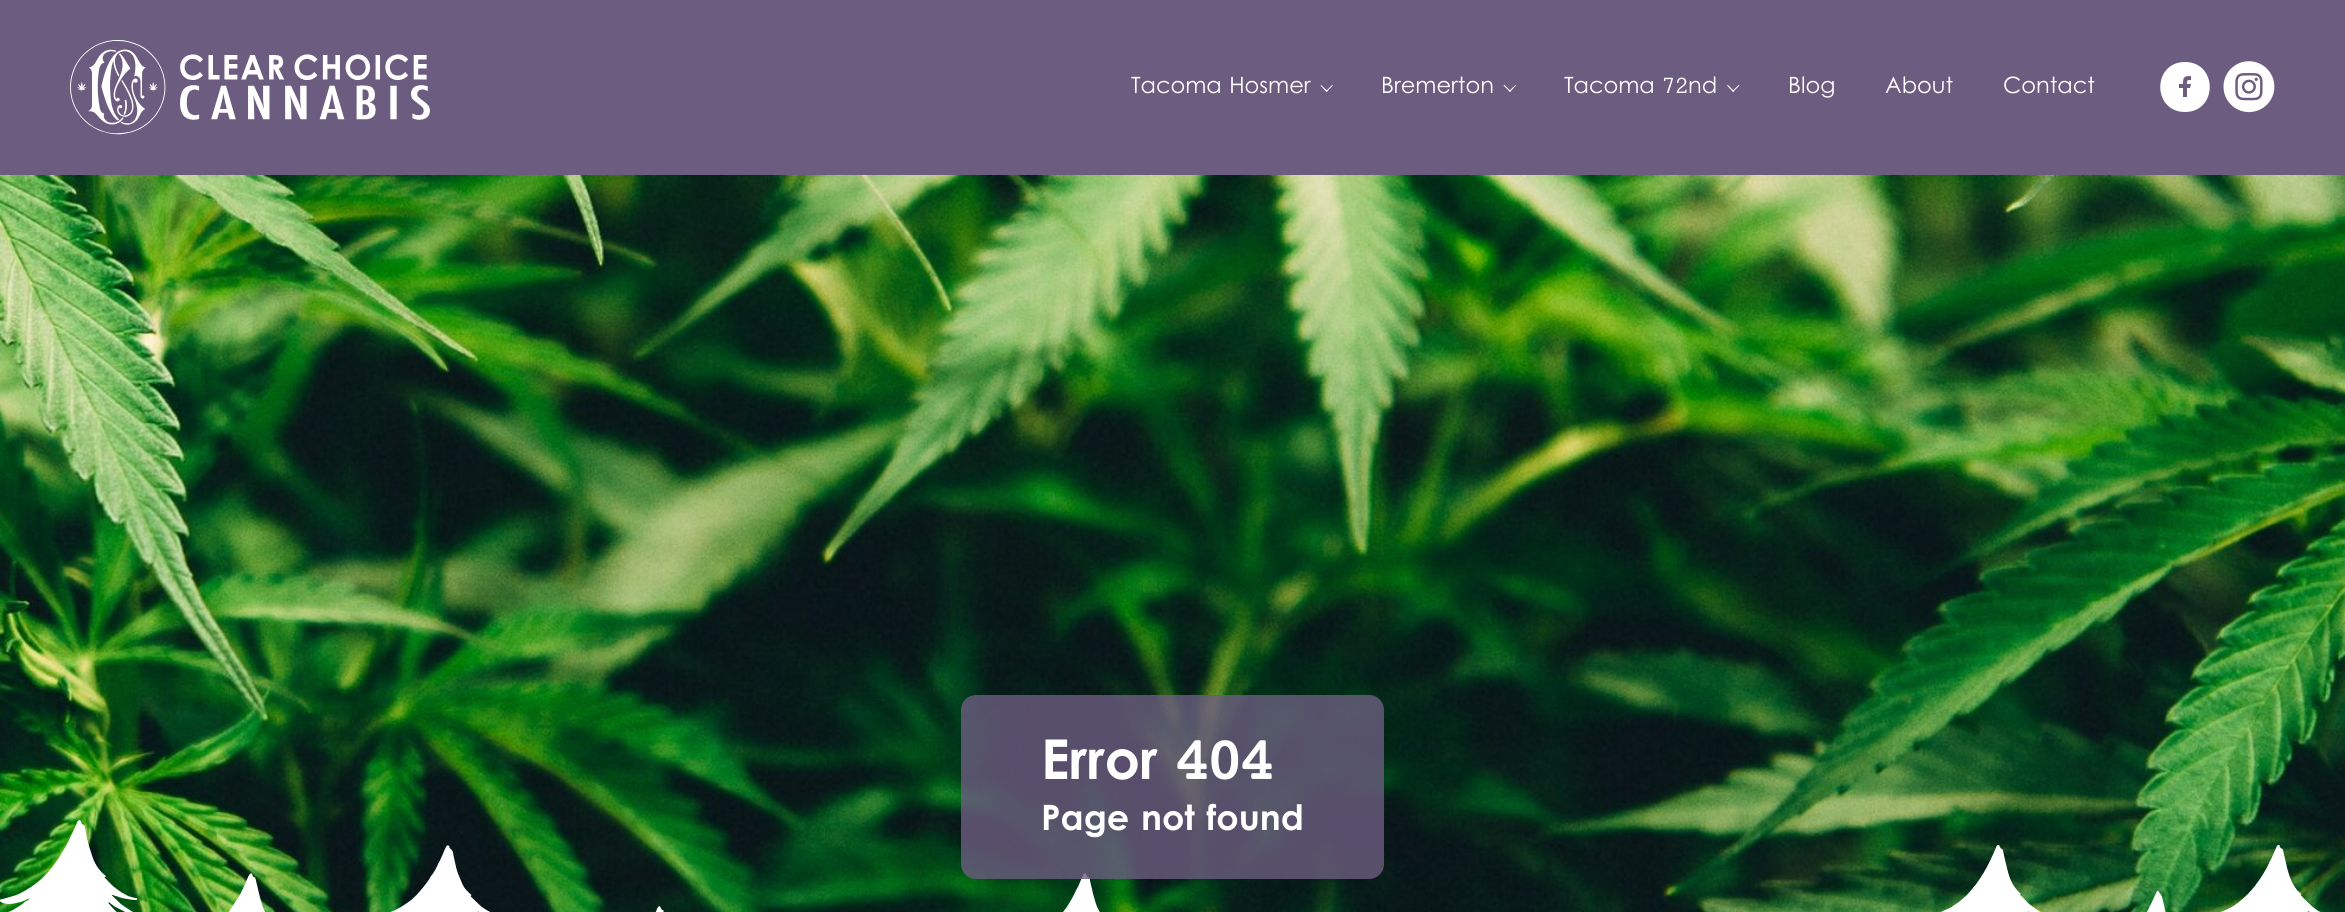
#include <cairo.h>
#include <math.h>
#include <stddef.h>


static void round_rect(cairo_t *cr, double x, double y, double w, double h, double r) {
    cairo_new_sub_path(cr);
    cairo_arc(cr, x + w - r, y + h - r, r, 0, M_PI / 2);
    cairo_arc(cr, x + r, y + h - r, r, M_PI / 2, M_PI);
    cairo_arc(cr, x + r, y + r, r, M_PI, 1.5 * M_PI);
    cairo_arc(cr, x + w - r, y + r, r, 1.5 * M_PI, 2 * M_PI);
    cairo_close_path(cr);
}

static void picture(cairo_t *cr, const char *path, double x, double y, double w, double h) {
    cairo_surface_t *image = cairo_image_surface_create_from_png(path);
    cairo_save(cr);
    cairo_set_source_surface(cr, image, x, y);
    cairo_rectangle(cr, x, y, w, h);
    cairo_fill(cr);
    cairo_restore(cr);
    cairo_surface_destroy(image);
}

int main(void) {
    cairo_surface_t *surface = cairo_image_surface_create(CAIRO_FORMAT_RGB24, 2345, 912);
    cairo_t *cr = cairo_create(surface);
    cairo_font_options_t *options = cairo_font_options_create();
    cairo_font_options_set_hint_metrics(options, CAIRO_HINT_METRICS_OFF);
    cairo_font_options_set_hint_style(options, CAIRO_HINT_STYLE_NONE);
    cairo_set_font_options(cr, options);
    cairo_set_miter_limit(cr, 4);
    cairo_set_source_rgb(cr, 0.424, 0.365, 0.502);
    cairo_paint(cr);
    picture(cr, "img1.png", 70, 40, 360, 95);
    cairo_select_font_face(cr, "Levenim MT", CAIRO_FONT_SLANT_NORMAL, CAIRO_FONT_WEIGHT_NORMAL);
    cairo_set_font_size(cr, 22.5);
    cairo_set_source_rgb(cr, 1, 1, 1);
    cairo_move_to(cr, 1131, 93);
    cairo_show_text(cr, "Tacoma Hosmer");
    cairo_new_path(cr);
    cairo_move_to(cr, 1333, 85.5);
    cairo_line_to(cr, 1326.5, 92);
    cairo_line_to(cr, 1326, 91);
    cairo_line_to(cr, 1332, 85);
    cairo_close_path(cr);
    cairo_fill(cr);
    cairo_new_path(cr);
    cairo_move_to(cr, 1327.5, 91);
    cairo_line_to(cr, 1326.5, 92);
    cairo_line_to(cr, 1320.5, 85.5);
    cairo_line_to(cr, 1321, 85);
    cairo_close_path(cr);
    cairo_fill(cr);
    cairo_move_to(cr, 1381, 93);
    cairo_show_text(cr, "Bremerton");
    cairo_new_path(cr);
    cairo_move_to(cr, 1516, 85.5);
    cairo_line_to(cr, 1510, 92);
    cairo_line_to(cr, 1509, 91);
    cairo_line_to(cr, 1515.5, 85);
    cairo_close_path(cr);
    cairo_fill(cr);
    cairo_new_path(cr);
    cairo_move_to(cr, 1510.5, 91);
    cairo_line_to(cr, 1510, 92);
    cairo_line_to(cr, 1503.5, 85.5);
    cairo_line_to(cr, 1504.5, 85);
    cairo_close_path(cr);
    cairo_fill(cr);
    cairo_move_to(cr, 1564, 93);
    cairo_show_text(cr, "Tacoma 72nd");
    cairo_new_path(cr);
    cairo_move_to(cr, 1739.5, 85.5);
    cairo_line_to(cr, 1733, 92);
    cairo_line_to(cr, 1732.5, 91);
    cairo_line_to(cr, 1738.5, 85);
    cairo_close_path(cr);
    cairo_fill(cr);
    cairo_new_path(cr);
    cairo_move_to(cr, 1734, 91);
    cairo_line_to(cr, 1733, 92);
    cairo_line_to(cr, 1727, 85.5);
    cairo_line_to(cr, 1728, 85);
    cairo_close_path(cr);
    cairo_fill(cr);
    cairo_move_to(cr, 1788, 93);
    cairo_show_text(cr, "Blog");
    cairo_move_to(cr, 1885, 93);
    cairo_show_text(cr, "About");
    cairo_move_to(cr, 2003, 93);
    cairo_show_text(cr, "Contact");
    cairo_new_path(cr);
    cairo_move_to(cr, 2185, 62);
    cairo_curve_to(cr, 2152, 62, 2152, 112, 2185, 112);
    cairo_curve_to(cr, 2218, 112, 2218, 62, 2185, 62);
    cairo_close_path(cr);
    cairo_move_to(cr, 2191, 80);
    cairo_curve_to(cr, 2187, 80, 2187, 80, 2187, 84);
    cairo_line_to(cr, 2191, 84);
    cairo_line_to(cr, 2190, 88);
    cairo_line_to(cr, 2187, 88);
    cairo_line_to(cr, 2187, 97);
    cairo_line_to(cr, 2183, 97);
    cairo_line_to(cr, 2183, 88);
    cairo_line_to(cr, 2179, 88);
    cairo_line_to(cr, 2179, 84);
    cairo_line_to(cr, 2183, 84);
    cairo_curve_to(cr, 2183, 77, 2184, 76, 2191, 76);
    cairo_close_path(cr);
    cairo_fill(cr);
    picture(cr, "img2.png", 2223, 61, 52, 52);
    picture(cr, "img3.png", 0, 175, 2345, 737);
    picture(cr, "img4.png", 0, 820, 2321, 92);
    cairo_set_source_rgba(cr, 0.424, 0.365, 0.502, 0.8);
    round_rect(cr, 961, 695, 423, 184, 15);
    cairo_fill(cr);
    cairo_select_font_face(cr, "Levenim MT", CAIRO_FONT_SLANT_NORMAL, CAIRO_FONT_WEIGHT_BOLD);
    cairo_set_font_size(cr, 55);
    cairo_set_source_rgb(cr, 1, 1, 1);
    cairo_move_to(cr, 1041, 779);
    cairo_show_text(cr, "Error 404");
    cairo_set_font_size(cr, 35);
    cairo_move_to(cr, 1041, 830);
    cairo_show_text(cr, "Page not found");
    cairo_surface_write_to_png(surface, "page.png");
    cairo_font_options_destroy(options);
    cairo_destroy(cr);
    cairo_surface_destroy(surface);
    return 0;
}
